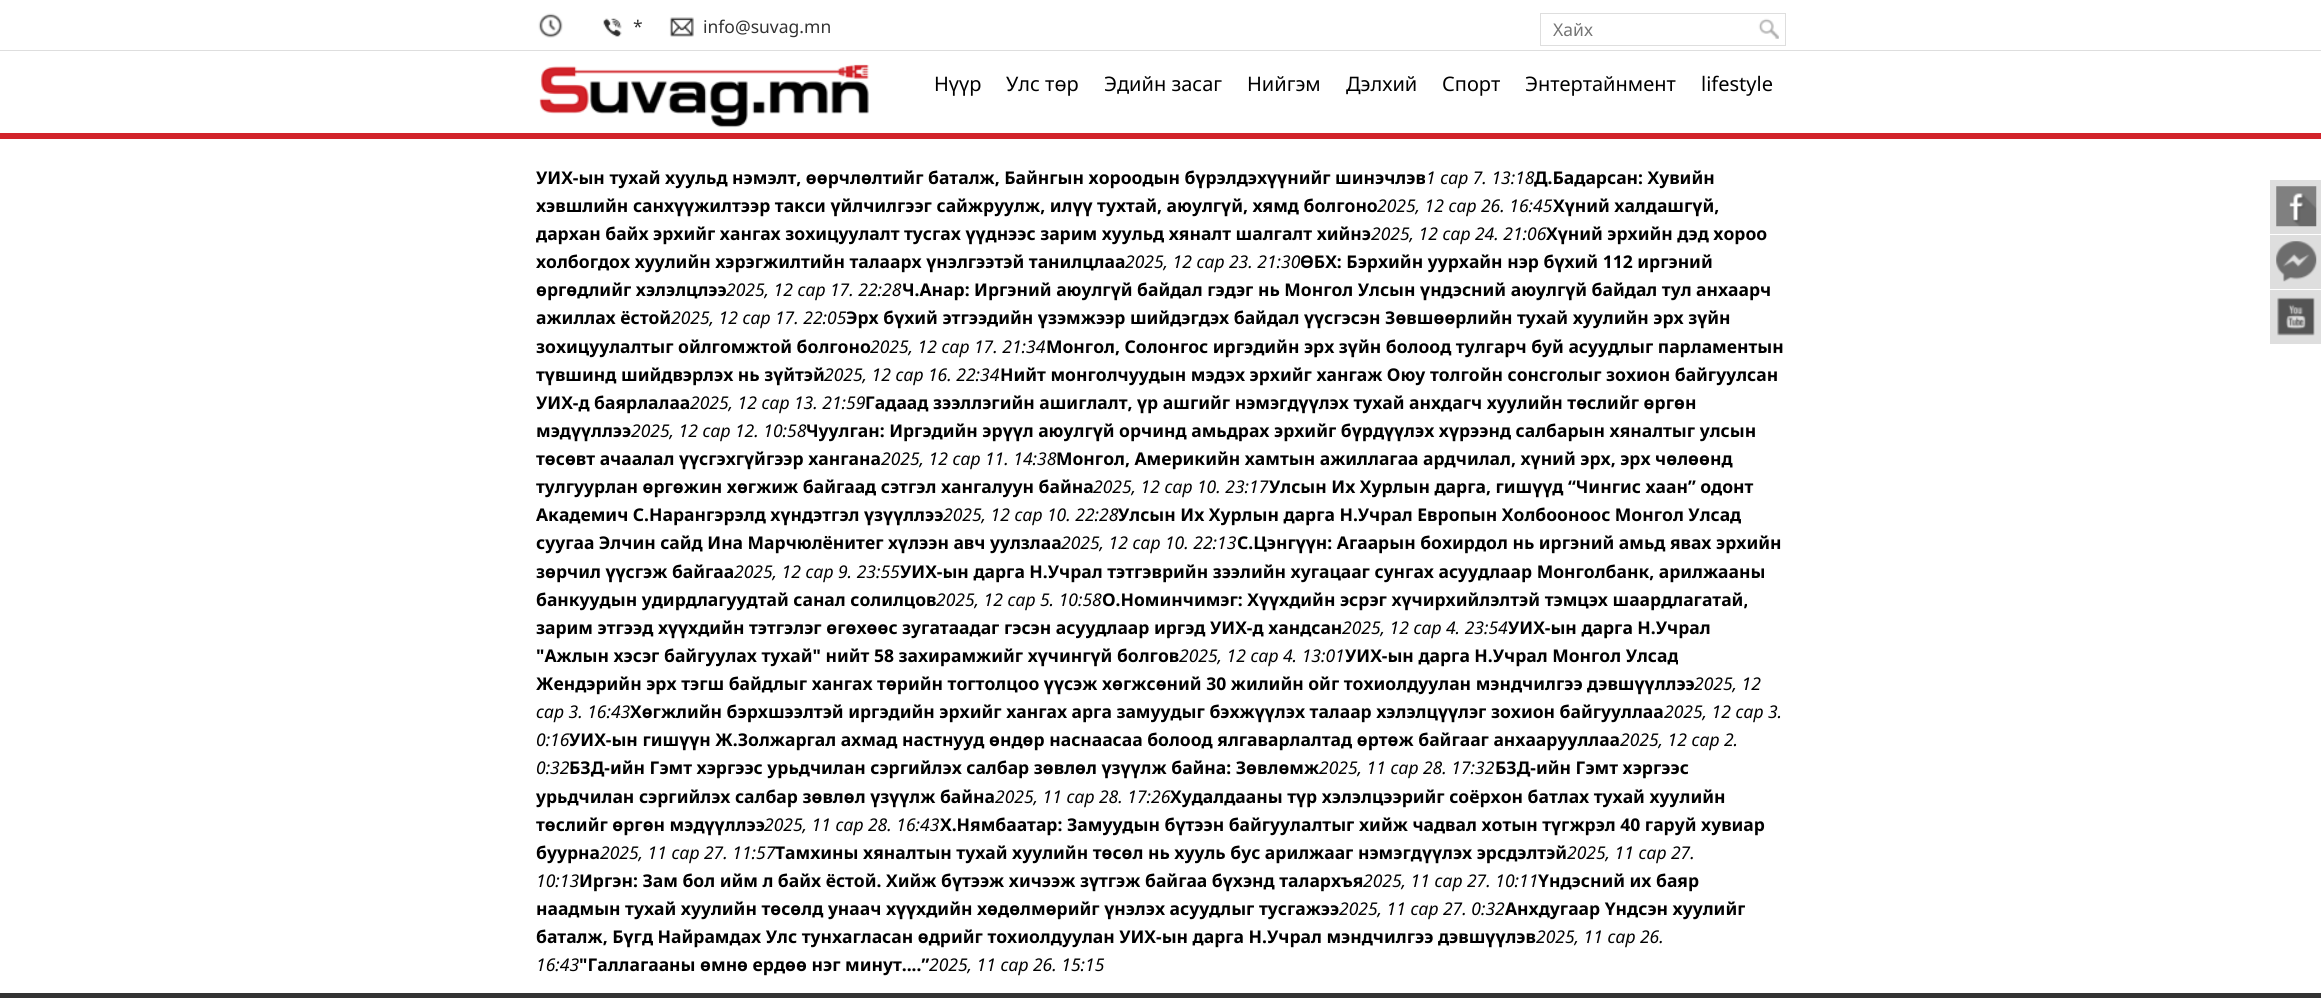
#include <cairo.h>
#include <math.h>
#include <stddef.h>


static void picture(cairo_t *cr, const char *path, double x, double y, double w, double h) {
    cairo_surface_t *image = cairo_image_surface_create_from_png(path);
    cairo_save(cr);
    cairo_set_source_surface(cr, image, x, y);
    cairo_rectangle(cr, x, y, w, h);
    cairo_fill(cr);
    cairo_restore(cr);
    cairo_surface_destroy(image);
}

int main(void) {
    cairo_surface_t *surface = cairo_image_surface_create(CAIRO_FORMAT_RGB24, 2321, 998);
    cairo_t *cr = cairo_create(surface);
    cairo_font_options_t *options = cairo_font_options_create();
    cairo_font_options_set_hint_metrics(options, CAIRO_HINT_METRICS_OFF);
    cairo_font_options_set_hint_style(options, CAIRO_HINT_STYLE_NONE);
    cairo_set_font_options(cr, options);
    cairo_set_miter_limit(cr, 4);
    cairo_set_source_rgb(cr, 1, 1, 1);
    cairo_paint(cr);
    cairo_set_source_rgb(cr, 0.871, 0.871, 0.871);
    cairo_rectangle(cr, 0, 50, 2321, 1);
    cairo_fill(cr);
    picture(cr, "img1.png", 538, 13, 25, 25);
    picture(cr, "img2.png", 603, 18, 19, 19);
    cairo_select_font_face(cr, "Noto Sans", CAIRO_FONT_SLANT_NORMAL, CAIRO_FONT_WEIGHT_NORMAL);
    cairo_set_font_size(cr, 17.5);
    cairo_set_source_rgb(cr, 0.2, 0.2, 0.2);
    cairo_move_to(cr, 633, 33);
    cairo_show_text(cr, "*");
    picture(cr, "img3.png", 669, 17, 25, 20);
    cairo_move_to(cr, 703, 33);
    cairo_show_text(cr, "info@suvag.mn");
    cairo_rectangle(cr, 1540.5, 13.5, 245, 32);
    cairo_set_source_rgb(cr, 0.871, 0.871, 0.871);
    cairo_set_line_width(cr, 1);
    cairo_stroke(cr);
    cairo_set_source_rgb(cr, 0.459, 0.459, 0.459);
    cairo_move_to(cr, 1553, 36);
    cairo_show_text(cr, "Хайх");
    picture(cr, "img4.png", 1758, 18, 21, 21);
    cairo_set_source_rgb(cr, 0.824, 0.137, 0.165);
    cairo_rectangle(cr, 0, 133, 2321, 6);
    cairo_fill(cr);
    picture(cr, "img5.png", 539, 64, 330, 64);
    cairo_set_font_size(cr, 20);
    cairo_set_source_rgb(cr, 0, 0, 0);
    cairo_move_to(cr, 934, 91);
    cairo_show_text(cr, "Нүүр");
    cairo_move_to(cr, 1006, 91);
    cairo_show_text(cr, "Улс төр");
    cairo_move_to(cr, 1104, 91);
    cairo_show_text(cr, "Эдийн засаг");
    cairo_move_to(cr, 1247, 91);
    cairo_show_text(cr, "Нийгэм");
    cairo_move_to(cr, 1346, 91);
    cairo_show_text(cr, "Дэлхий");
    cairo_move_to(cr, 1442, 91);
    cairo_show_text(cr, "Спорт");
    cairo_move_to(cr, 1525, 91);
    cairo_show_text(cr, "Энтертайнмент");
    cairo_move_to(cr, 1701, 91);
    cairo_show_text(cr, "lifestyle");
    cairo_select_font_face(cr, "Noto Sans", CAIRO_FONT_SLANT_NORMAL, CAIRO_FONT_WEIGHT_BOLD);
    cairo_set_font_size(cr, 17.5);
    cairo_move_to(cr, 536, 184);
    cairo_show_text(cr, "УИХ-ын тухай хуульд нэмэлт, өөрчлөлтийг баталж, Байнгын хороодын бүрэлдэхүүнийг шинэчлэв");
    cairo_select_font_face(cr, "Noto Sans", CAIRO_FONT_SLANT_ITALIC, CAIRO_FONT_WEIGHT_NORMAL);
    cairo_move_to(cr, 1426, 184);
    cairo_show_text(cr, "1 сар 7. 13:18");
    cairo_select_font_face(cr, "Noto Sans", CAIRO_FONT_SLANT_NORMAL, CAIRO_FONT_WEIGHT_BOLD);
    cairo_move_to(cr, 1534, 184);
    cairo_show_text(cr, "Д.Бадарсан: Хувийн");
    cairo_move_to(cr, 536, 212);
    cairo_show_text(cr, "хэвшлийн санхүүжилтээр такси үйлчилгээг сайжруулж, илүү тухтай, аюулгүй, хямд болгоно");
    cairo_select_font_face(cr, "Noto Sans", CAIRO_FONT_SLANT_ITALIC, CAIRO_FONT_WEIGHT_NORMAL);
    cairo_move_to(cr, 1377, 212);
    cairo_show_text(cr, "2025, 12 сар 26. 16:45");
    cairo_select_font_face(cr, "Noto Sans", CAIRO_FONT_SLANT_NORMAL, CAIRO_FONT_WEIGHT_BOLD);
    cairo_move_to(cr, 1553, 212);
    cairo_show_text(cr, "Хүний халдашгүй,");
    cairo_move_to(cr, 536, 240);
    cairo_show_text(cr, "дархан байх эрхийг хангах зохицуулалт тусгах үүднээс зарим хуульд хяналт шалгалт хийнэ");
    cairo_select_font_face(cr, "Noto Sans", CAIRO_FONT_SLANT_ITALIC, CAIRO_FONT_WEIGHT_NORMAL);
    cairo_move_to(cr, 1371, 240);
    cairo_show_text(cr, "2025, 12 сар 24. 21:06");
    cairo_select_font_face(cr, "Noto Sans", CAIRO_FONT_SLANT_NORMAL, CAIRO_FONT_WEIGHT_BOLD);
    cairo_move_to(cr, 1546, 240);
    cairo_show_text(cr, "Хүний эрхийн дэд хороо");
    cairo_move_to(cr, 536, 268);
    cairo_show_text(cr, "холбогдох хуулийн хэрэгжилтийн талаарх үнэлгээтэй танилцлаа");
    cairo_select_font_face(cr, "Noto Sans", CAIRO_FONT_SLANT_ITALIC, CAIRO_FONT_WEIGHT_NORMAL);
    cairo_move_to(cr, 1125, 268);
    cairo_show_text(cr, "2025, 12 сар 23. 21:30");
    cairo_select_font_face(cr, "Noto Sans", CAIRO_FONT_SLANT_NORMAL, CAIRO_FONT_WEIGHT_BOLD);
    cairo_move_to(cr, 1300, 268);
    cairo_show_text(cr, "ӨБХ: Бэрхийн уурхайн нэр бүхий 112 иргэний");
    cairo_move_to(cr, 536, 296);
    cairo_show_text(cr, "өргөдлийг хэлэлцлээ");
    cairo_select_font_face(cr, "Noto Sans", CAIRO_FONT_SLANT_ITALIC, CAIRO_FONT_WEIGHT_NORMAL);
    cairo_move_to(cr, 726, 296);
    cairo_show_text(cr, "2025, 12 сар 17. 22:28");
    cairo_select_font_face(cr, "Noto Sans", CAIRO_FONT_SLANT_NORMAL, CAIRO_FONT_WEIGHT_BOLD);
    cairo_move_to(cr, 902, 296);
    cairo_show_text(cr, "Ч.Анар: Иргэний аюулгүй байдал гэдэг нь Монгол Улсын үндэсний аюулгүй байдал тул анхаарч");
    cairo_move_to(cr, 536, 324);
    cairo_show_text(cr, "ажиллах ёстой");
    cairo_select_font_face(cr, "Noto Sans", CAIRO_FONT_SLANT_ITALIC, CAIRO_FONT_WEIGHT_NORMAL);
    cairo_move_to(cr, 671, 324);
    cairo_show_text(cr, "2025, 12 сар 17. 22:05");
    cairo_select_font_face(cr, "Noto Sans", CAIRO_FONT_SLANT_NORMAL, CAIRO_FONT_WEIGHT_BOLD);
    cairo_move_to(cr, 846, 324);
    cairo_show_text(cr, "Эрх бүхий этгээдийн үзэмжээр шийдэгдэх байдал үүсгэсэн Зөвшөөрлийн тухай хуулийн эрх зүйн");
    cairo_move_to(cr, 536, 353);
    cairo_show_text(cr, "зохицуулалтыг ойлгомжтой болгоно");
    cairo_select_font_face(cr, "Noto Sans", CAIRO_FONT_SLANT_ITALIC, CAIRO_FONT_WEIGHT_NORMAL);
    cairo_move_to(cr, 870, 353);
    cairo_show_text(cr, "2025, 12 сар 17. 21:34");
    cairo_select_font_face(cr, "Noto Sans", CAIRO_FONT_SLANT_NORMAL, CAIRO_FONT_WEIGHT_BOLD);
    cairo_move_to(cr, 1046, 353);
    cairo_show_text(cr, "Монгол, Солонгос иргэдийн эрх зүйн болоод тулгарч буй асуудлыг парламентын");
    cairo_move_to(cr, 536, 381);
    cairo_show_text(cr, "түвшинд шийдвэрлэх нь зүйтэй");
    cairo_select_font_face(cr, "Noto Sans", CAIRO_FONT_SLANT_ITALIC, CAIRO_FONT_WEIGHT_NORMAL);
    cairo_move_to(cr, 824, 381);
    cairo_show_text(cr, "2025, 12 сар 16. 22:34");
    cairo_select_font_face(cr, "Noto Sans", CAIRO_FONT_SLANT_NORMAL, CAIRO_FONT_WEIGHT_BOLD);
    cairo_move_to(cr, 1000, 381);
    cairo_show_text(cr, "Нийт монголчуудын мэдэх эрхийг хангаж Оюу толгойн сонсголыг зохион байгуулсан");
    cairo_move_to(cr, 536, 409);
    cairo_show_text(cr, "УИХ-д баярлалаа");
    cairo_select_font_face(cr, "Noto Sans", CAIRO_FONT_SLANT_ITALIC, CAIRO_FONT_WEIGHT_NORMAL);
    cairo_move_to(cr, 690, 409);
    cairo_show_text(cr, "2025, 12 сар 13. 21:59");
    cairo_select_font_face(cr, "Noto Sans", CAIRO_FONT_SLANT_NORMAL, CAIRO_FONT_WEIGHT_BOLD);
    cairo_move_to(cr, 865, 409);
    cairo_show_text(cr, "Гадаад зээллэгийн ашиглалт, үр ашгийг нэмэгдүүлэх тухай анхдагч хуулийн төслийг өргөн");
    cairo_move_to(cr, 536, 437);
    cairo_show_text(cr, "мэдүүллээ");
    cairo_select_font_face(cr, "Noto Sans", CAIRO_FONT_SLANT_ITALIC, CAIRO_FONT_WEIGHT_NORMAL);
    cairo_move_to(cr, 631, 437);
    cairo_show_text(cr, "2025, 12 сар 12. 10:58");
    cairo_select_font_face(cr, "Noto Sans", CAIRO_FONT_SLANT_NORMAL, CAIRO_FONT_WEIGHT_BOLD);
    cairo_move_to(cr, 806, 437);
    cairo_show_text(cr, "Чуулган: Иргэдийн эрүүл аюулгүй орчинд амьдрах эрхийг бүрдүүлэх хүрээнд салбарын хяналтыг улсын");
    cairo_move_to(cr, 536, 465);
    cairo_show_text(cr, "төсөвт ачаалал үүсгэхгүйгээр хангана");
    cairo_select_font_face(cr, "Noto Sans", CAIRO_FONT_SLANT_ITALIC, CAIRO_FONT_WEIGHT_NORMAL);
    cairo_move_to(cr, 881, 465);
    cairo_show_text(cr, "2025, 12 сар 11. 14:38");
    cairo_select_font_face(cr, "Noto Sans", CAIRO_FONT_SLANT_NORMAL, CAIRO_FONT_WEIGHT_BOLD);
    cairo_move_to(cr, 1056, 465);
    cairo_show_text(cr, "Монгол, Америкийн хамтын ажиллагаа ардчилал, хүний эрх, эрх чөлөөнд");
    cairo_move_to(cr, 536, 493);
    cairo_show_text(cr, "тулгуурлан өргөжин хөгжиж байгаад сэтгэл хангалуун байна");
    cairo_select_font_face(cr, "Noto Sans", CAIRO_FONT_SLANT_ITALIC, CAIRO_FONT_WEIGHT_NORMAL);
    cairo_move_to(cr, 1093, 493);
    cairo_show_text(cr, "2025, 12 сар 10. 23:17");
    cairo_select_font_face(cr, "Noto Sans", CAIRO_FONT_SLANT_NORMAL, CAIRO_FONT_WEIGHT_BOLD);
    cairo_move_to(cr, 1269, 493);
    cairo_show_text(cr, "Улсын Их Хурлын дарга, гишүүд “Чингис хаан” одонт");
    cairo_move_to(cr, 536, 521);
    cairo_show_text(cr, "Академич С.Нарангэрэлд хүндэтгэл үзүүллээ");
    cairo_select_font_face(cr, "Noto Sans", CAIRO_FONT_SLANT_ITALIC, CAIRO_FONT_WEIGHT_NORMAL);
    cairo_move_to(cr, 943, 521);
    cairo_show_text(cr, "2025, 12 сар 10. 22:28");
    cairo_select_font_face(cr, "Noto Sans", CAIRO_FONT_SLANT_NORMAL, CAIRO_FONT_WEIGHT_BOLD);
    cairo_move_to(cr, 1118, 521);
    cairo_show_text(cr, "Улсын Их Хурлын дарга Н.Учрал Европын Холбооноос Монгол Улсад");
    cairo_move_to(cr, 536, 549);
    cairo_show_text(cr, "суугаа Элчин сайд Ина Марчюлёнитег хүлээн авч уулзлаа");
    cairo_select_font_face(cr, "Noto Sans", CAIRO_FONT_SLANT_ITALIC, CAIRO_FONT_WEIGHT_NORMAL);
    cairo_move_to(cr, 1061, 549);
    cairo_show_text(cr, "2025, 12 сар 10. 22:13");
    cairo_select_font_face(cr, "Noto Sans", CAIRO_FONT_SLANT_NORMAL, CAIRO_FONT_WEIGHT_BOLD);
    cairo_move_to(cr, 1237, 549);
    cairo_show_text(cr, "С.Цэнгүүн: Агаарын бохирдол нь иргэний амьд явах эрхийн");
    cairo_move_to(cr, 536, 578);
    cairo_show_text(cr, "зөрчил үүсгэж байгаа");
    cairo_select_font_face(cr, "Noto Sans", CAIRO_FONT_SLANT_ITALIC, CAIRO_FONT_WEIGHT_NORMAL);
    cairo_move_to(cr, 734, 578);
    cairo_show_text(cr, "2025, 12 сар 9. 23:55");
    cairo_select_font_face(cr, "Noto Sans", CAIRO_FONT_SLANT_NORMAL, CAIRO_FONT_WEIGHT_BOLD);
    cairo_move_to(cr, 900, 578);
    cairo_show_text(cr, "УИХ-ын дарга Н.Учрал тэтгэврийн зээлийн хугацааг сунгах асуудлаар Монголбанк, арилжааны");
    cairo_move_to(cr, 536, 606);
    cairo_show_text(cr, "банкуудын удирдлагуудтай санал солилцов");
    cairo_select_font_face(cr, "Noto Sans", CAIRO_FONT_SLANT_ITALIC, CAIRO_FONT_WEIGHT_NORMAL);
    cairo_move_to(cr, 936, 606);
    cairo_show_text(cr, "2025, 12 сар 5. 10:58");
    cairo_select_font_face(cr, "Noto Sans", CAIRO_FONT_SLANT_NORMAL, CAIRO_FONT_WEIGHT_BOLD);
    cairo_move_to(cr, 1102, 606);
    cairo_show_text(cr, "О.Номинчимэг: Хүүхдийн эсрэг хүчирхийлэлтэй тэмцэх шаардлагатай,");
    cairo_move_to(cr, 536, 634);
    cairo_show_text(cr, "зарим этгээд хүүхдийн тэтгэлэг өгөхөөс зугатаадаг гэсэн асуудлаар иргэд УИХ-д хандсан");
    cairo_select_font_face(cr, "Noto Sans", CAIRO_FONT_SLANT_ITALIC, CAIRO_FONT_WEIGHT_NORMAL);
    cairo_move_to(cr, 1342, 634);
    cairo_show_text(cr, "2025, 12 сар 4. 23:54");
    cairo_select_font_face(cr, "Noto Sans", CAIRO_FONT_SLANT_NORMAL, CAIRO_FONT_WEIGHT_BOLD);
    cairo_move_to(cr, 1508, 634);
    cairo_show_text(cr, "УИХ-ын дарга Н.Учрал");
    cairo_move_to(cr, 536, 662);
    cairo_show_text(cr, "\"Ажлын хэсэг байгуулах тухай\" нийт 58 захирамжийг хүчингүй болгов");
    cairo_select_font_face(cr, "Noto Sans", CAIRO_FONT_SLANT_ITALIC, CAIRO_FONT_WEIGHT_NORMAL);
    cairo_move_to(cr, 1179, 662);
    cairo_show_text(cr, "2025, 12 сар 4. 13:01");
    cairo_select_font_face(cr, "Noto Sans", CAIRO_FONT_SLANT_NORMAL, CAIRO_FONT_WEIGHT_BOLD);
    cairo_move_to(cr, 1345, 662);
    cairo_show_text(cr, "УИХ-ын дарга Н.Учрал Монгол Улсад");
    cairo_move_to(cr, 536, 690);
    cairo_show_text(cr, "Жендэрийн эрх тэгш байдлыг хангах төрийн тогтолцоо үүсэж хөгжсөний 30 жилийн ойг тохиолдуулан мэндчилгээ дэвшүүллээ");
    cairo_select_font_face(cr, "Noto Sans", CAIRO_FONT_SLANT_ITALIC, CAIRO_FONT_WEIGHT_NORMAL);
    cairo_move_to(cr, 1694, 690);
    cairo_show_text(cr, "2025, 12");
    cairo_move_to(cr, 536, 718);
    cairo_show_text(cr, "сар 3. 16:43");
    cairo_select_font_face(cr, "Noto Sans", CAIRO_FONT_SLANT_NORMAL, CAIRO_FONT_WEIGHT_BOLD);
    cairo_move_to(cr, 630, 718);
    cairo_show_text(cr, "Хөгжлийн бэрхшээлтэй иргэдийн эрхийг хангах арга замуудыг бэхжүүлэх талаар хэлэлцүүлэг зохион байгууллаа");
    cairo_select_font_face(cr, "Noto Sans", CAIRO_FONT_SLANT_ITALIC, CAIRO_FONT_WEIGHT_NORMAL);
    cairo_move_to(cr, 1664, 718);
    cairo_show_text(cr, "2025, 12 сар 3.");
    cairo_move_to(cr, 536, 746);
    cairo_show_text(cr, "0:16");
    cairo_select_font_face(cr, "Noto Sans", CAIRO_FONT_SLANT_NORMAL, CAIRO_FONT_WEIGHT_BOLD);
    cairo_move_to(cr, 569, 746);
    cairo_show_text(cr, "УИХ-ын гишүүн Ж.Золжаргал ахмад настнууд өндөр наснаасаа болоод ялгаварлалтад өртөж байгааг анхаарууллаа");
    cairo_select_font_face(cr, "Noto Sans", CAIRO_FONT_SLANT_ITALIC, CAIRO_FONT_WEIGHT_NORMAL);
    cairo_move_to(cr, 1620, 746);
    cairo_show_text(cr, "2025, 12 сар 2.");
    cairo_move_to(cr, 536, 774);
    cairo_show_text(cr, "0:32");
    cairo_select_font_face(cr, "Noto Sans", CAIRO_FONT_SLANT_NORMAL, CAIRO_FONT_WEIGHT_BOLD);
    cairo_move_to(cr, 569, 774);
    cairo_show_text(cr, "БЗД-ийн Гэмт хэргээс урьдчилан сэргийлэх салбар зөвлөл үзүүлж байна: Зөвлөмж");
    cairo_select_font_face(cr, "Noto Sans", CAIRO_FONT_SLANT_ITALIC, CAIRO_FONT_WEIGHT_NORMAL);
    cairo_move_to(cr, 1319, 774);
    cairo_show_text(cr, "2025, 11 сар 28. 17:32");
    cairo_select_font_face(cr, "Noto Sans", CAIRO_FONT_SLANT_NORMAL, CAIRO_FONT_WEIGHT_BOLD);
    cairo_move_to(cr, 1495, 774);
    cairo_show_text(cr, "БЗД-ийн Гэмт хэргээс");
    cairo_move_to(cr, 536, 803);
    cairo_show_text(cr, "урьдчилан сэргийлэх салбар зөвлөл үзүүлж байна");
    cairo_select_font_face(cr, "Noto Sans", CAIRO_FONT_SLANT_ITALIC, CAIRO_FONT_WEIGHT_NORMAL);
    cairo_move_to(cr, 995, 803);
    cairo_show_text(cr, "2025, 11 сар 28. 17:26");
    cairo_select_font_face(cr, "Noto Sans", CAIRO_FONT_SLANT_NORMAL, CAIRO_FONT_WEIGHT_BOLD);
    cairo_move_to(cr, 1170, 803);
    cairo_show_text(cr, "Худалдааны түр хэлэлцээрийг соёрхон батлах тухай хуулийн");
    cairo_move_to(cr, 536, 831);
    cairo_show_text(cr, "төслийг өргөн мэдүүллээ");
    cairo_select_font_face(cr, "Noto Sans", CAIRO_FONT_SLANT_ITALIC, CAIRO_FONT_WEIGHT_NORMAL);
    cairo_move_to(cr, 764, 831);
    cairo_show_text(cr, "2025, 11 сар 28. 16:43");
    cairo_select_font_face(cr, "Noto Sans", CAIRO_FONT_SLANT_NORMAL, CAIRO_FONT_WEIGHT_BOLD);
    cairo_move_to(cr, 940, 831);
    cairo_show_text(cr, "Х.Нямбаатар: Замуудын бүтээн байгуулалтыг хийж чадвал хотын түгжрэл 40 гаруй хувиар");
    cairo_move_to(cr, 536, 859);
    cairo_show_text(cr, "буурна");
    cairo_select_font_face(cr, "Noto Sans", CAIRO_FONT_SLANT_ITALIC, CAIRO_FONT_WEIGHT_NORMAL);
    cairo_move_to(cr, 600, 859);
    cairo_show_text(cr, "2025, 11 сар 27. 11:57");
    cairo_select_font_face(cr, "Noto Sans", CAIRO_FONT_SLANT_NORMAL, CAIRO_FONT_WEIGHT_BOLD);
    cairo_move_to(cr, 775, 859);
    cairo_show_text(cr, "Тамхины хяналтын тухай хуулийн төсөл нь хууль бус арилжааг нэмэгдүүлэх эрсдэлтэй");
    cairo_select_font_face(cr, "Noto Sans", CAIRO_FONT_SLANT_ITALIC, CAIRO_FONT_WEIGHT_NORMAL);
    cairo_move_to(cr, 1567, 859);
    cairo_show_text(cr, "2025, 11 сар 27.");
    cairo_move_to(cr, 536, 887);
    cairo_show_text(cr, "10:13");
    cairo_select_font_face(cr, "Noto Sans", CAIRO_FONT_SLANT_NORMAL, CAIRO_FONT_WEIGHT_BOLD);
    cairo_move_to(cr, 579, 887);
    cairo_show_text(cr, "Иргэн: Зам бол ийм л байх ёстой. Хийж бүтээж хичээж зүтгэж байгаа бүхэнд талархъя");
    cairo_select_font_face(cr, "Noto Sans", CAIRO_FONT_SLANT_ITALIC, CAIRO_FONT_WEIGHT_NORMAL);
    cairo_move_to(cr, 1363, 887);
    cairo_show_text(cr, "2025, 11 сар 27. 10:11");
    cairo_select_font_face(cr, "Noto Sans", CAIRO_FONT_SLANT_NORMAL, CAIRO_FONT_WEIGHT_BOLD);
    cairo_move_to(cr, 1538, 887);
    cairo_show_text(cr, "Үндэсний их баяр");
    cairo_move_to(cr, 536, 915);
    cairo_show_text(cr, "наадмын тухай хуулийн төсөлд унаач хүүхдийн хөдөлмөрийг үнэлэх асуудлыг тусгажээ");
    cairo_select_font_face(cr, "Noto Sans", CAIRO_FONT_SLANT_ITALIC, CAIRO_FONT_WEIGHT_NORMAL);
    cairo_move_to(cr, 1339, 915);
    cairo_show_text(cr, "2025, 11 сар 27. 0:32");
    cairo_select_font_face(cr, "Noto Sans", CAIRO_FONT_SLANT_NORMAL, CAIRO_FONT_WEIGHT_BOLD);
    cairo_move_to(cr, 1505, 915);
    cairo_show_text(cr, "Анхдугаар Үндсэн хуулийг");
    cairo_move_to(cr, 536, 943);
    cairo_show_text(cr, "баталж, Бүгд Найрамдах Улс тунхагласан өдрийг тохиолдуулан УИХ-ын дарга Н.Учрал мэндчилгээ дэвшүүлэв");
    cairo_select_font_face(cr, "Noto Sans", CAIRO_FONT_SLANT_ITALIC, CAIRO_FONT_WEIGHT_NORMAL);
    cairo_move_to(cr, 1536, 943);
    cairo_show_text(cr, "2025, 11 сар 26.");
    cairo_move_to(cr, 536, 971);
    cairo_show_text(cr, "16:43");
    cairo_select_font_face(cr, "Noto Sans", CAIRO_FONT_SLANT_NORMAL, CAIRO_FONT_WEIGHT_BOLD);
    cairo_move_to(cr, 579, 971);
    cairo_show_text(cr, "\"Галлагааны өмнө ердөө нэг минут....”");
    cairo_select_font_face(cr, "Noto Sans", CAIRO_FONT_SLANT_ITALIC, CAIRO_FONT_WEIGHT_NORMAL);
    cairo_move_to(cr, 929, 971);
    cairo_show_text(cr, "2025, 11 сар 26. 15:15");
    cairo_set_source_rgb(cr, 0.871, 0.871, 0.871);
    cairo_rectangle(cr, 2270, 180, 51, 54);
    cairo_fill(cr);
    picture(cr, "img6.png", 2276, 186, 41, 41);
    cairo_rectangle(cr, 2270, 235, 51, 54);
    cairo_fill(cr);
    picture(cr, "img7.png", 2276, 241, 41, 41);
    cairo_rectangle(cr, 2270, 290, 51, 54);
    cairo_fill(cr);
    picture(cr, "img8.png", 2277, 297, 38, 39);
    cairo_set_source_rgb(cr, 0.2, 0.2, 0.2);
    cairo_rectangle(cr, 0, 993, 2321, 5);
    cairo_fill(cr);
    cairo_surface_write_to_png(surface, "page.png");
    cairo_font_options_destroy(options);
    cairo_destroy(cr);
    cairo_surface_destroy(surface);
    return 0;
}
